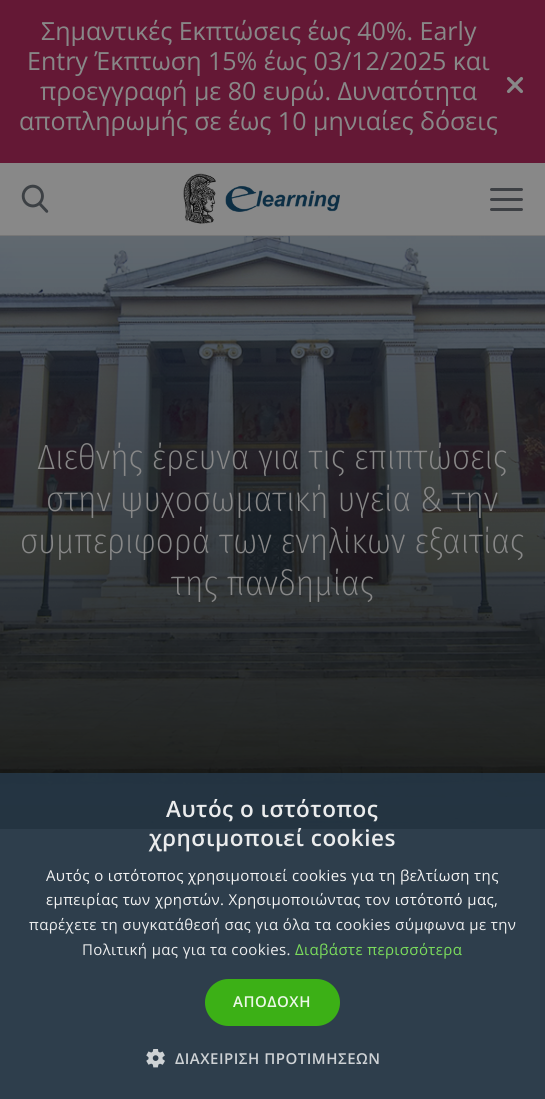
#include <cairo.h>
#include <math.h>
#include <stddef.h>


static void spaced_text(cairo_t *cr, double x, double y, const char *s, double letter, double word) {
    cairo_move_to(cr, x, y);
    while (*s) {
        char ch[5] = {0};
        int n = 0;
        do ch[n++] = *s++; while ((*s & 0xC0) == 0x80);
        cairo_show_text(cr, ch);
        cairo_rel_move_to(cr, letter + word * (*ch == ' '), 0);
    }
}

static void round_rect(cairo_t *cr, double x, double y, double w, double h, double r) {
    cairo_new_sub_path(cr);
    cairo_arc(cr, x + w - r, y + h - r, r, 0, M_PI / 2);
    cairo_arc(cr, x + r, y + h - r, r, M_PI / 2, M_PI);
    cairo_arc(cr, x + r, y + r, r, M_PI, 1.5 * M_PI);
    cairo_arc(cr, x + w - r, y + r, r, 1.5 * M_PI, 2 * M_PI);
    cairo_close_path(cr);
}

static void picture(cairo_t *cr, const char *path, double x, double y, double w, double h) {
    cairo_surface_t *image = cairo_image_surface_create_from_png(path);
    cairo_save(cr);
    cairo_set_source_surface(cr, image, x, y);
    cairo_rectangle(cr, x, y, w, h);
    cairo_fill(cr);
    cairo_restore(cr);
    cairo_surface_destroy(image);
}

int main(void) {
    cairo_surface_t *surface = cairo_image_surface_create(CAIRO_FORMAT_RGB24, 545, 1099);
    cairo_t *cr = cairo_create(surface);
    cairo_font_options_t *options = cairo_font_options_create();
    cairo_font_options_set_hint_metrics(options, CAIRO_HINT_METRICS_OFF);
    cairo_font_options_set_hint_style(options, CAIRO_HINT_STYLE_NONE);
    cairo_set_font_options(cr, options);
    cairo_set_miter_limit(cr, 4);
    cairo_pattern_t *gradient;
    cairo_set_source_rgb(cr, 0.533, 0.533, 0.533);
    cairo_paint(cr);
    cairo_set_source_rgb(cr, 0.392, 0.094, 0.208);
    cairo_rectangle(cr, 0, 0, 545, 163);
    cairo_fill(cr);
    cairo_select_font_face(cr, "Open Sans", CAIRO_FONT_SLANT_NORMAL, CAIRO_FONT_WEIGHT_NORMAL);
    cairo_set_font_size(cr, 25);
    cairo_set_source_rgb(cr, 0.533, 0.533, 0.533);
    cairo_move_to(cr, 41, 40);
    cairo_show_text(cr, "Σημαντικές Εκπτώσεις έως 40%. Early");
    cairo_move_to(cr, 27, 70);
    cairo_show_text(cr, "Entry Έκπτωση 15% έως 03/12/2025 και");
    cairo_move_to(cr, 40, 100);
    cairo_show_text(cr, "προεγγραφή με 80 ευρώ. Δυνατότητα");
    cairo_move_to(cr, 19, 130);
    cairo_show_text(cr, "αποπληρωμής σε έως 10 μηνιαίες δόσεις");
    picture(cr, "img1.png", 506, 76, 18, 18);
    cairo_set_source_rgb(cr, 0.467, 0.467, 0.467);
    cairo_rectangle(cr, 0, 235, 545, 1);
    cairo_fill(cr);
    picture(cr, "img2.png", 21, 184, 28, 29);
    picture(cr, "img3.png", 183, 173, 157, 51);
    cairo_set_source_rgb(cr, 0.239, 0.251, 0.267);
    round_rect(cr, 490, 188, 33, 3, 1.5);
    cairo_fill(cr);
    round_rect(cr, 490, 198, 33, 3, 1.5);
    cairo_fill(cr);
    round_rect(cr, 490, 208, 33, 3, 1.5);
    cairo_fill(cr);
    picture(cr, "img4.png", 0, 236, 545, 590);
    cairo_set_source_rgb(cr, 0.51, 0.51, 0.51);
    cairo_rectangle(cr, 0, 826, 545, 273);
    cairo_fill(cr);
    gradient = cairo_pattern_create_linear(272, 236, 273, 829);
    cairo_pattern_add_color_stop_rgba(gradient, 0, 0.039, 0.129, 0.22, 0.3);
    cairo_pattern_add_color_stop_rgba(gradient, 1, 0.055, 0.055, 0.035, 0.9);
    cairo_set_source(cr, gradient);
    cairo_pattern_destroy(gradient);
    cairo_rectangle(cr, 0, 236, 545, 593);
    cairo_fill(cr);
    cairo_select_font_face(cr, "Fira Sans Condensed Light", CAIRO_FONT_SLANT_NORMAL, CAIRO_FONT_WEIGHT_NORMAL);
    cairo_set_font_size(cr, 35);
    cairo_set_source_rgb(cr, 0.533, 0.533, 0.533);
    cairo_move_to(cr, 37, 469);
    cairo_show_text(cr, "Διεθνής έρευνα για τις επιπτώσεις");
    cairo_move_to(cr, 46, 511);
    cairo_show_text(cr, "στην ψυχοσωματική υγεία & την");
    cairo_move_to(cr, 20, 553);
    cairo_show_text(cr, "συμπεριφορά των ενηλίκων εξαιτίας");
    cairo_move_to(cr, 171, 595);
    cairo_show_text(cr, "της πανδημίας");
    cairo_set_source_rgba(cr, 0.145, 0.216, 0.275, 0.9);
    cairo_rectangle(cr, 0, 773, 545, 326);
    cairo_fill(cr);
    cairo_select_font_face(cr, "Open Sans SemiBold", CAIRO_FONT_SLANT_NORMAL, CAIRO_FONT_WEIGHT_NORMAL);
    cairo_set_font_size(cr, 22.5);
    cairo_set_source_rgb(cr, 0.918, 0.925, 0.929);
    spaced_text(cr, 166, 817, "Αυτός ο ιστότοπος", 0.5, 0);
    spaced_text(cr, 149, 846, "χρησιμοποιεί cookies", 0.5, 0);
    cairo_select_font_face(cr, "Open Sans", CAIRO_FONT_SLANT_NORMAL, CAIRO_FONT_WEIGHT_NORMAL);
    cairo_set_font_size(cr, 15);
    cairo_set_source_rgb(cr, 0.953, 0.953, 0.953);
    spaced_text(cr, 46, 881, "Αυτός ο ιστότοπος χρησιμοποιεί cookies για τη βελτίωση της", 0.38, 0);
    spaced_text(cr, 46, 905, "εμπειρίας των χρηστών. Χρησιμοποιώντας τον ιστότοπό μας,", 0.38, 0);
    cairo_set_source_rgb(cr, 0.918, 0.925, 0.929);
    spaced_text(cr, 29, 930, "παρέχετε τη συγκατάθεσή σας για όλα τα cookies σύμφωνα με την", 0.38, 0);
    spaced_text(cr, 82, 955, "Πολιτική μας για τα cookies.", 0.38, 0);
    cairo_set_source_rgb(cr, 0.482, 0.867, 0.361);
    spaced_text(cr, 295, 955, "Διαβάστε περισσότερα", 0.38, 0);
    cairo_set_source_rgba(cr, 0.239, 0.741, 0.067, 0.9);
    round_rect(cr, 205, 979, 135, 47, 23.5);
    cairo_fill(cr);
    cairo_select_font_face(cr, "Open Sans SemiBold", CAIRO_FONT_SLANT_NORMAL, CAIRO_FONT_WEIGHT_NORMAL);
    cairo_set_source_rgb(cr, 0.922, 0.969, 0.91);
    spaced_text(cr, 233, 1007, "ΑΠΟΔΟΧΗ", 0.5, 0);
    picture(cr, "img5.png", 146, 1049, 19, 19);
    cairo_set_source_rgb(cr, 0.808, 0.824, 0.835);
    spaced_text(cr, 175, 1064, "ΔΙΑΧΕΙΡΙΣΗ ΠΡΟΤΙΜΗΣΕΩΝ", 0.5, 0);
    cairo_surface_write_to_png(surface, "page.png");
    cairo_font_options_destroy(options);
    cairo_destroy(cr);
    cairo_surface_destroy(surface);
    return 0;
}
